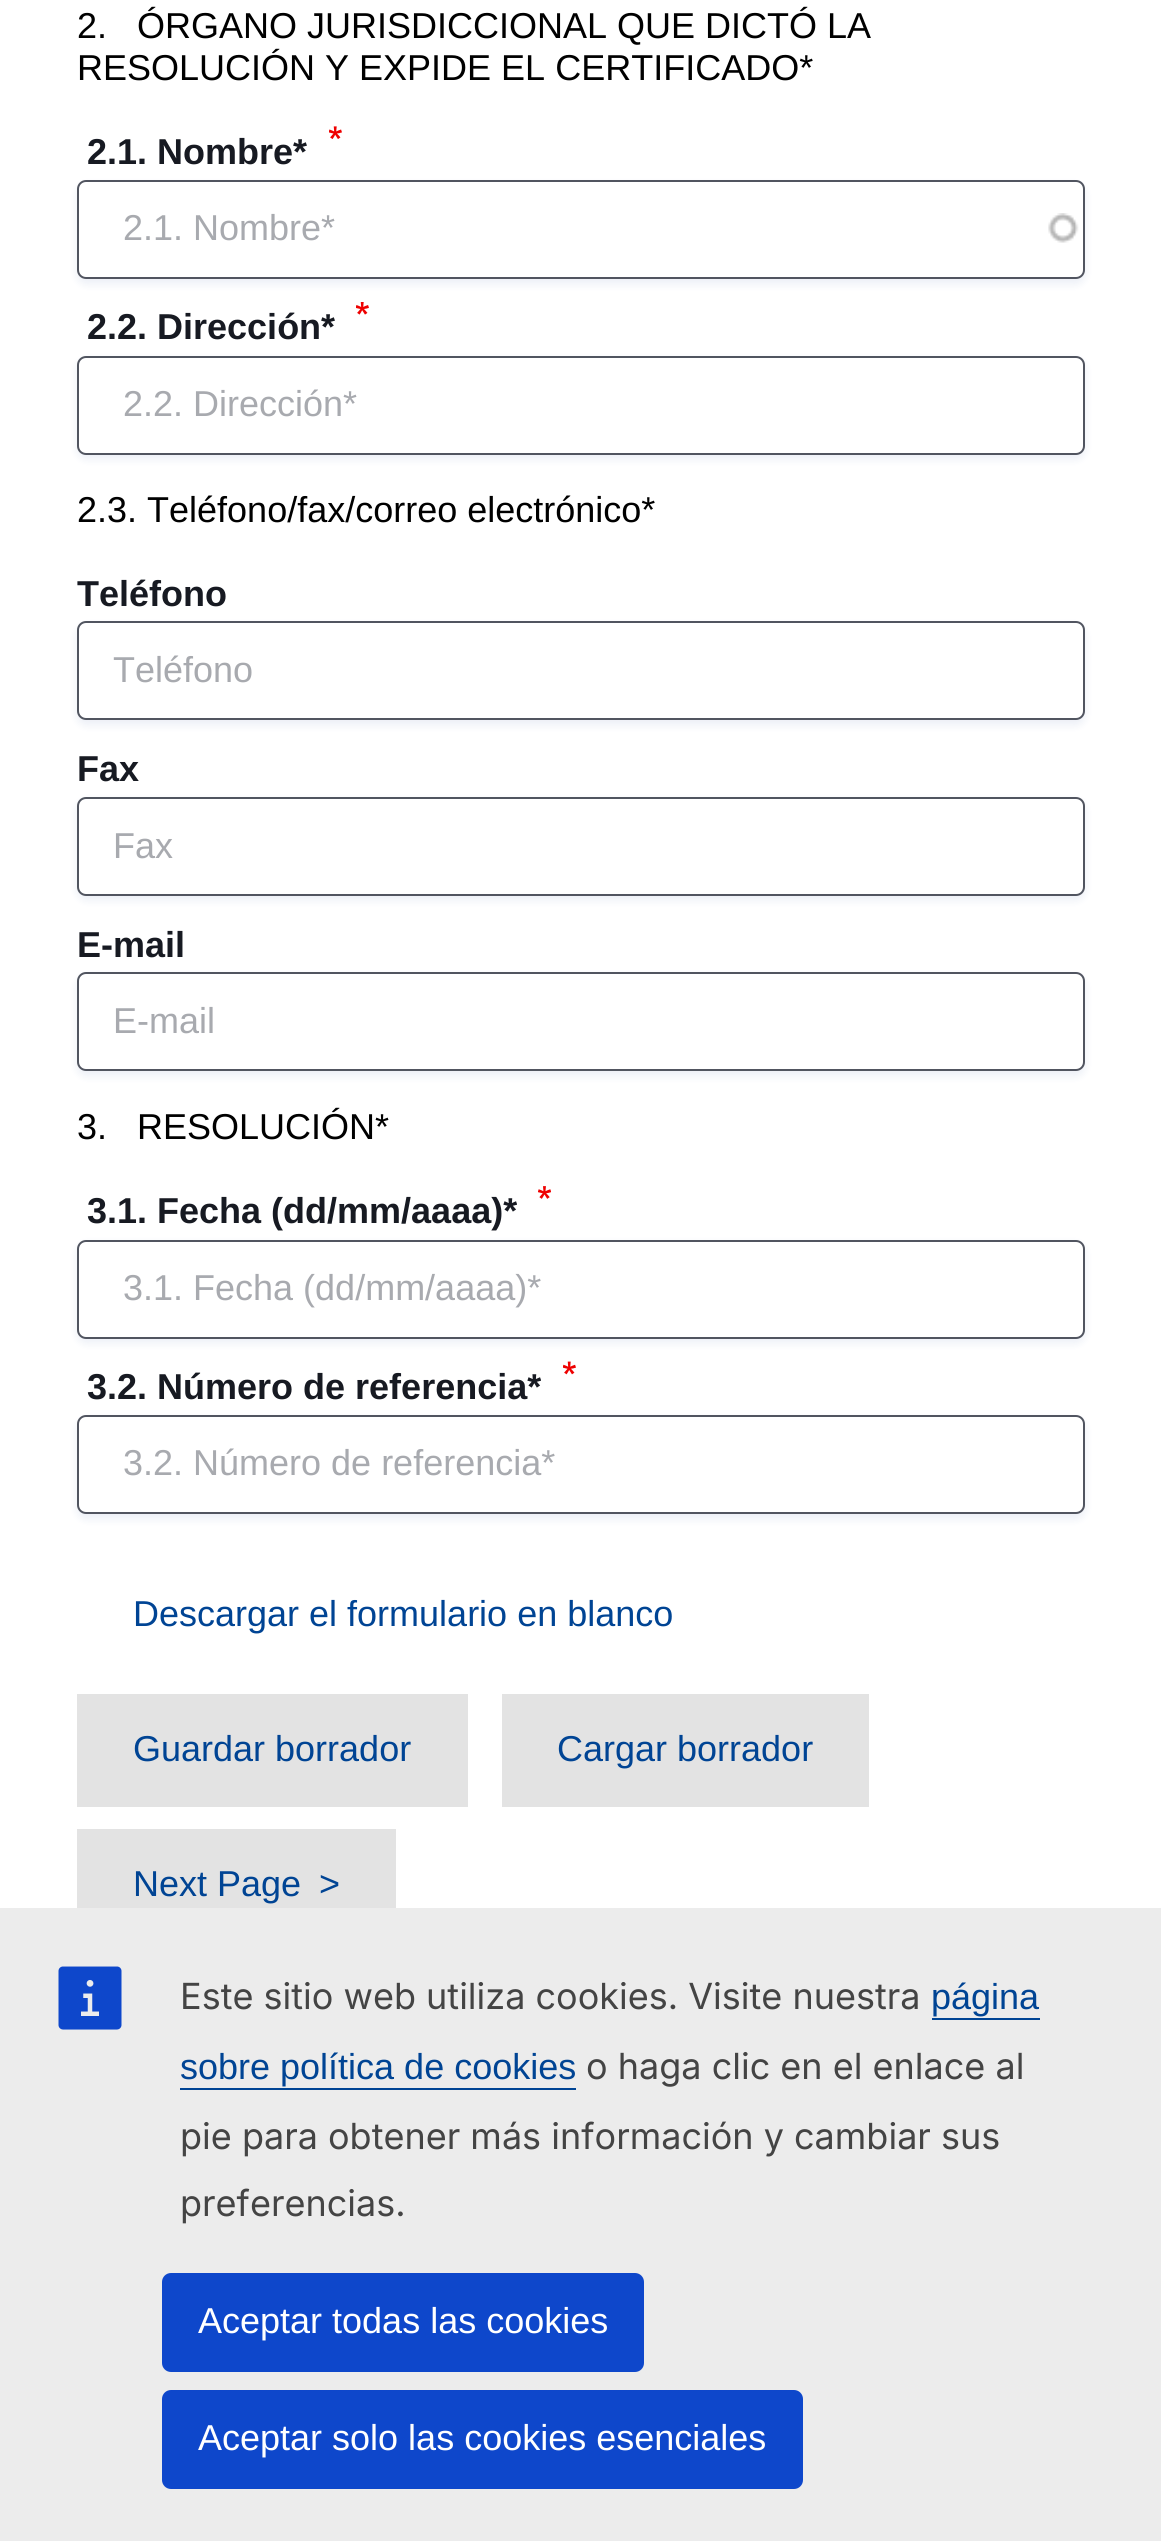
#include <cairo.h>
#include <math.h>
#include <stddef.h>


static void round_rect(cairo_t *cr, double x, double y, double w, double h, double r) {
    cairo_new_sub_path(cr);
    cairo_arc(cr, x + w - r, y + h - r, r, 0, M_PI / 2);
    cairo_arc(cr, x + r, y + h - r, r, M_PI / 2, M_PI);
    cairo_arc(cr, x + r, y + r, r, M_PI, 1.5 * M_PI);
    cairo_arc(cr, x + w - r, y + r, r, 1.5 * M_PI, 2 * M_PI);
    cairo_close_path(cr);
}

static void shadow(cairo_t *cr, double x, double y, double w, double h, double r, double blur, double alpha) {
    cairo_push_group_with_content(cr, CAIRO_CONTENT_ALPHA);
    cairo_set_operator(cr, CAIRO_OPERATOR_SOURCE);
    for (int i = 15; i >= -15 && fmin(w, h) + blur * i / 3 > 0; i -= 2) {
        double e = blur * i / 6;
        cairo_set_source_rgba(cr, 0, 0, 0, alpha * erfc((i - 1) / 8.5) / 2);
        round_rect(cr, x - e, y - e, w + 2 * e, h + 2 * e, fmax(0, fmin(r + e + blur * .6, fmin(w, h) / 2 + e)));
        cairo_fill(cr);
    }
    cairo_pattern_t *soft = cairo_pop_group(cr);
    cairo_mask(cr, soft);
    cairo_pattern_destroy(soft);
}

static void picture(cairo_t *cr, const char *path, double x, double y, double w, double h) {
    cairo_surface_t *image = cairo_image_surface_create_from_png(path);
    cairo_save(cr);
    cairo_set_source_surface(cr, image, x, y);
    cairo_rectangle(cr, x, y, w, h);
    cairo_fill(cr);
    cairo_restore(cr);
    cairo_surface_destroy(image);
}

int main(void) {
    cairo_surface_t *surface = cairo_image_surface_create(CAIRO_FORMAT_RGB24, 1161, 2541);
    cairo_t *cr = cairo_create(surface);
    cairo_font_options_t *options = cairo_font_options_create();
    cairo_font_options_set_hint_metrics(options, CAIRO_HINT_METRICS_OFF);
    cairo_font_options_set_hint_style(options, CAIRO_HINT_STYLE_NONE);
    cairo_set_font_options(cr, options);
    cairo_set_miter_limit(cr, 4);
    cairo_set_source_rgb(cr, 1, 1, 1);
    cairo_paint(cr);
    cairo_select_font_face(cr, "Liberation Sans", CAIRO_FONT_SLANT_NORMAL, CAIRO_FONT_WEIGHT_NORMAL);
    cairo_set_font_size(cr, 36);
    cairo_set_source_rgb(cr, 0, 0, 0);
    cairo_move_to(cr, 77, 38);
    cairo_show_text(cr, "2.   ÓRGANO JURISDICCIONAL QUE DICTÓ LA");
    cairo_move_to(cr, 77, 80);
    cairo_show_text(cr, "RESOLUCIÓN Y EXPIDE EL CERTIFICADO*");
    picture(cr, "img1.png", 329, 126, 13, 13);
    cairo_select_font_face(cr, "Liberation Sans", CAIRO_FONT_SLANT_NORMAL, CAIRO_FONT_WEIGHT_BOLD);
    cairo_set_source_rgb(cr, 0.09, 0.102, 0.133);
    cairo_move_to(cr, 87, 164);
    cairo_show_text(cr, "2.1. Nombre*");
    cairo_set_source_rgb(cr, 0.035, 0.192, 0.557);
    shadow(cr, 77, 185, 1008, 99, 9, 4.5, 0.08);
    cairo_set_source_rgb(cr, 1, 1, 1);
    round_rect(cr, 77, 180, 1008, 99, 9);
    cairo_fill(cr);
    picture(cr, "img2.png", 1048, 213, 31, 30);
    round_rect(cr, 78, 181, 1006, 97, 8);
    cairo_set_source_rgb(cr, 0.318, 0.333, 0.376);
    cairo_stroke(cr);
    cairo_select_font_face(cr, "Liberation Sans", CAIRO_FONT_SLANT_NORMAL, CAIRO_FONT_WEIGHT_NORMAL);
    cairo_set_source_rgb(cr, 0.659, 0.667, 0.686);
    cairo_move_to(cr, 123, 240);
    cairo_show_text(cr, "2.1. Nombre*");
    picture(cr, "img3.png", 356, 302, 13, 13);
    cairo_select_font_face(cr, "Liberation Sans", CAIRO_FONT_SLANT_NORMAL, CAIRO_FONT_WEIGHT_BOLD);
    cairo_set_source_rgb(cr, 0.09, 0.102, 0.133);
    cairo_move_to(cr, 87, 339);
    cairo_show_text(cr, "2.2. Dirección*");
    cairo_set_source_rgb(cr, 0.035, 0.192, 0.557);
    shadow(cr, 77, 360, 1008, 99, 9, 4.5, 0.08);
    cairo_set_source_rgb(cr, 1, 1, 1);
    round_rect(cr, 78, 357, 1006, 97, 8);
    cairo_fill_preserve(cr);
    cairo_set_source_rgb(cr, 0.318, 0.333, 0.376);
    cairo_stroke(cr);
    cairo_select_font_face(cr, "Liberation Sans", CAIRO_FONT_SLANT_NORMAL, CAIRO_FONT_WEIGHT_NORMAL);
    cairo_set_source_rgb(cr, 0.659, 0.667, 0.686);
    cairo_move_to(cr, 123, 416);
    cairo_show_text(cr, "2.2. Dirección*");
    cairo_set_source_rgb(cr, 0, 0, 0);
    cairo_move_to(cr, 77, 522);
    cairo_show_text(cr, "2.3. Teléfono/fax/correo electrónico*");
    cairo_select_font_face(cr, "Liberation Sans", CAIRO_FONT_SLANT_NORMAL, CAIRO_FONT_WEIGHT_BOLD);
    cairo_set_source_rgb(cr, 0.09, 0.102, 0.133);
    cairo_move_to(cr, 77, 606);
    cairo_show_text(cr, "Teléfono");
    cairo_set_source_rgb(cr, 0.035, 0.192, 0.557);
    shadow(cr, 77, 626, 1008, 99, 9, 4.5, 0.08);
    cairo_set_source_rgb(cr, 1, 1, 1);
    round_rect(cr, 78, 622, 1006, 97, 8);
    cairo_fill_preserve(cr);
    cairo_set_source_rgb(cr, 0.318, 0.333, 0.376);
    cairo_stroke(cr);
    cairo_select_font_face(cr, "Liberation Sans", CAIRO_FONT_SLANT_NORMAL, CAIRO_FONT_WEIGHT_NORMAL);
    cairo_set_source_rgb(cr, 0.659, 0.667, 0.686);
    cairo_move_to(cr, 113, 682);
    cairo_show_text(cr, "Teléfono");
    cairo_select_font_face(cr, "Liberation Sans", CAIRO_FONT_SLANT_NORMAL, CAIRO_FONT_WEIGHT_BOLD);
    cairo_set_source_rgb(cr, 0.09, 0.102, 0.133);
    cairo_move_to(cr, 77, 781);
    cairo_show_text(cr, "Fax");
    cairo_set_source_rgb(cr, 0.035, 0.192, 0.557);
    shadow(cr, 77, 801, 1008, 99, 9, 4.5, 0.08);
    cairo_set_source_rgb(cr, 1, 1, 1);
    round_rect(cr, 78, 798, 1006, 97, 8);
    cairo_fill_preserve(cr);
    cairo_set_source_rgb(cr, 0.318, 0.333, 0.376);
    cairo_stroke(cr);
    cairo_select_font_face(cr, "Liberation Sans", CAIRO_FONT_SLANT_NORMAL, CAIRO_FONT_WEIGHT_NORMAL);
    cairo_set_source_rgb(cr, 0.659, 0.667, 0.686);
    cairo_move_to(cr, 113, 858);
    cairo_show_text(cr, "Fax");
    cairo_select_font_face(cr, "Liberation Sans", CAIRO_FONT_SLANT_NORMAL, CAIRO_FONT_WEIGHT_BOLD);
    cairo_set_source_rgb(cr, 0.09, 0.102, 0.133);
    cairo_move_to(cr, 77, 957);
    cairo_show_text(cr, "E-mail");
    cairo_set_source_rgb(cr, 0.035, 0.192, 0.557);
    shadow(cr, 77, 977, 1008, 99, 9, 4.5, 0.08);
    cairo_set_source_rgb(cr, 1, 1, 1);
    round_rect(cr, 78, 973, 1006, 97, 8);
    cairo_fill_preserve(cr);
    cairo_set_source_rgb(cr, 0.318, 0.333, 0.376);
    cairo_stroke(cr);
    cairo_select_font_face(cr, "Liberation Sans", CAIRO_FONT_SLANT_NORMAL, CAIRO_FONT_WEIGHT_NORMAL);
    cairo_set_source_rgb(cr, 0.659, 0.667, 0.686);
    cairo_move_to(cr, 113, 1033);
    cairo_show_text(cr, "E-mail");
    cairo_set_source_rgb(cr, 0, 0, 0);
    cairo_move_to(cr, 77, 1139);
    cairo_show_text(cr, "3.   RESOLUCIÓN*");
    picture(cr, "img4.png", 538, 1186, 13, 13);
    cairo_set_source_rgb(cr, 0.035, 0.192, 0.557);
    shadow(cr, 77, 1244, 1008, 99, 9, 4.5, 0.08);
    cairo_select_font_face(cr, "Liberation Sans", CAIRO_FONT_SLANT_NORMAL, CAIRO_FONT_WEIGHT_BOLD);
    cairo_set_source_rgb(cr, 0.09, 0.102, 0.133);
    cairo_move_to(cr, 87, 1223);
    cairo_show_text(cr, "3.1. Fecha (dd/mm/aaaa)*");
    cairo_set_source_rgb(cr, 1, 1, 1);
    round_rect(cr, 78, 1241, 1006, 97, 8);
    cairo_fill_preserve(cr);
    cairo_set_source_rgb(cr, 0.318, 0.333, 0.376);
    cairo_stroke(cr);
    cairo_select_font_face(cr, "Liberation Sans", CAIRO_FONT_SLANT_NORMAL, CAIRO_FONT_WEIGHT_NORMAL);
    cairo_set_source_rgb(cr, 0.659, 0.667, 0.686);
    cairo_move_to(cr, 123, 1300);
    cairo_show_text(cr, "3.1. Fecha (dd/mm/aaaa)*");
    picture(cr, "img5.png", 563, 1361, 13, 14);
    cairo_select_font_face(cr, "Liberation Sans", CAIRO_FONT_SLANT_NORMAL, CAIRO_FONT_WEIGHT_BOLD);
    cairo_set_source_rgb(cr, 0.09, 0.102, 0.133);
    cairo_move_to(cr, 87, 1399);
    cairo_show_text(cr, "3.2. Número de referencia*");
    cairo_set_source_rgb(cr, 0.035, 0.192, 0.557);
    shadow(cr, 77, 1420, 1008, 99, 9, 4.5, 0.08);
    cairo_set_source_rgb(cr, 1, 1, 1);
    round_rect(cr, 78, 1416, 1006, 97, 8);
    cairo_fill_preserve(cr);
    cairo_set_source_rgb(cr, 0.318, 0.333, 0.376);
    cairo_stroke(cr);
    cairo_select_font_face(cr, "Liberation Sans", CAIRO_FONT_SLANT_NORMAL, CAIRO_FONT_WEIGHT_NORMAL);
    cairo_set_source_rgb(cr, 0.659, 0.667, 0.686);
    cairo_move_to(cr, 123, 1475);
    cairo_show_text(cr, "3.2. Número de referencia*");
    cairo_set_source_rgb(cr, 0, 0.267, 0.58);
    cairo_move_to(cr, 133, 1626);
    cairo_show_text(cr, "Descargar el formulario en blanco");
    cairo_set_source_rgb(cr, 0.89, 0.89, 0.89);
    cairo_rectangle(cr, 77, 1694, 391, 113);
    cairo_fill(cr);
    cairo_set_source_rgb(cr, 0, 0.267, 0.58);
    cairo_move_to(cr, 133, 1761);
    cairo_show_text(cr, "Guardar borrador");
    cairo_set_source_rgb(cr, 0.89, 0.89, 0.89);
    cairo_rectangle(cr, 502, 1694, 367, 113);
    cairo_fill(cr);
    cairo_set_source_rgb(cr, 0, 0.267, 0.58);
    cairo_move_to(cr, 557, 1761);
    cairo_show_text(cr, "Cargar borrador");
    cairo_set_source_rgb(cr, 0.89, 0.89, 0.89);
    cairo_rectangle(cr, 77, 1829, 319, 79);
    cairo_fill(cr);
    cairo_set_source_rgb(cr, 0, 0.267, 0.58);
    cairo_move_to(cr, 133, 1896);
    cairo_show_text(cr, "Next Page");
    cairo_move_to(cr, 319, 1896);
    cairo_show_text(cr, ">");
    cairo_set_source_rgb(cr, 0.922, 0.922, 0.922);
    cairo_rectangle(cr, 0, 1908, 1161, 633);
    cairo_fill(cr);
    picture(cr, "img6.png", 58, 1966, 64, 64);
    cairo_select_font_face(cr, "Inter", CAIRO_FONT_SLANT_NORMAL, CAIRO_FONT_WEIGHT_NORMAL);
    cairo_set_source_rgb(cr, 0.267, 0.267, 0.267);
    cairo_move_to(cr, 180, 2009);
    cairo_show_text(cr, "Este sitio web utiliza cookies. Visite nuestra");
    cairo_select_font_face(cr, "Liberation Sans", CAIRO_FONT_SLANT_NORMAL, CAIRO_FONT_WEIGHT_NORMAL);
    cairo_set_source_rgb(cr, 0, 0.267, 0.58);
    cairo_move_to(cr, 931, 2009);
    cairo_show_text(cr, "página");
    cairo_rectangle(cr, 932, 2018, 108, 2);
    cairo_fill(cr);
    cairo_move_to(cr, 180, 2079);
    cairo_show_text(cr, "sobre política de cookies");
    cairo_rectangle(cr, 180, 2088, 396, 2);
    cairo_fill(cr);
    cairo_select_font_face(cr, "Inter", CAIRO_FONT_SLANT_NORMAL, CAIRO_FONT_WEIGHT_NORMAL);
    cairo_set_source_rgb(cr, 0.267, 0.267, 0.267);
    cairo_move_to(cr, 586, 2079);
    cairo_show_text(cr, "o haga clic en el enlace al");
    cairo_move_to(cr, 180, 2149);
    cairo_show_text(cr, "pie para obtener más información y cambiar sus");
    cairo_move_to(cr, 180, 2216);
    cairo_show_text(cr, "preferencias.");
    cairo_set_source_rgb(cr, 0.055, 0.278, 0.796);
    round_rect(cr, 162, 2273, 482, 99, 9);
    cairo_fill(cr);
    cairo_select_font_face(cr, "Liberation Sans", CAIRO_FONT_SLANT_NORMAL, CAIRO_FONT_WEIGHT_NORMAL);
    cairo_set_source_rgb(cr, 1, 1, 1);
    cairo_move_to(cr, 198, 2333);
    cairo_show_text(cr, "Aceptar todas las cookies");
    cairo_set_source_rgb(cr, 0.055, 0.278, 0.796);
    round_rect(cr, 162, 2390, 641, 99, 9);
    cairo_fill(cr);
    cairo_set_source_rgb(cr, 1, 1, 1);
    cairo_move_to(cr, 198, 2450);
    cairo_show_text(cr, "Aceptar solo las cookies esenciales");
    cairo_surface_write_to_png(surface, "page.png");
    cairo_font_options_destroy(options);
    cairo_destroy(cr);
    cairo_surface_destroy(surface);
    return 0;
}
